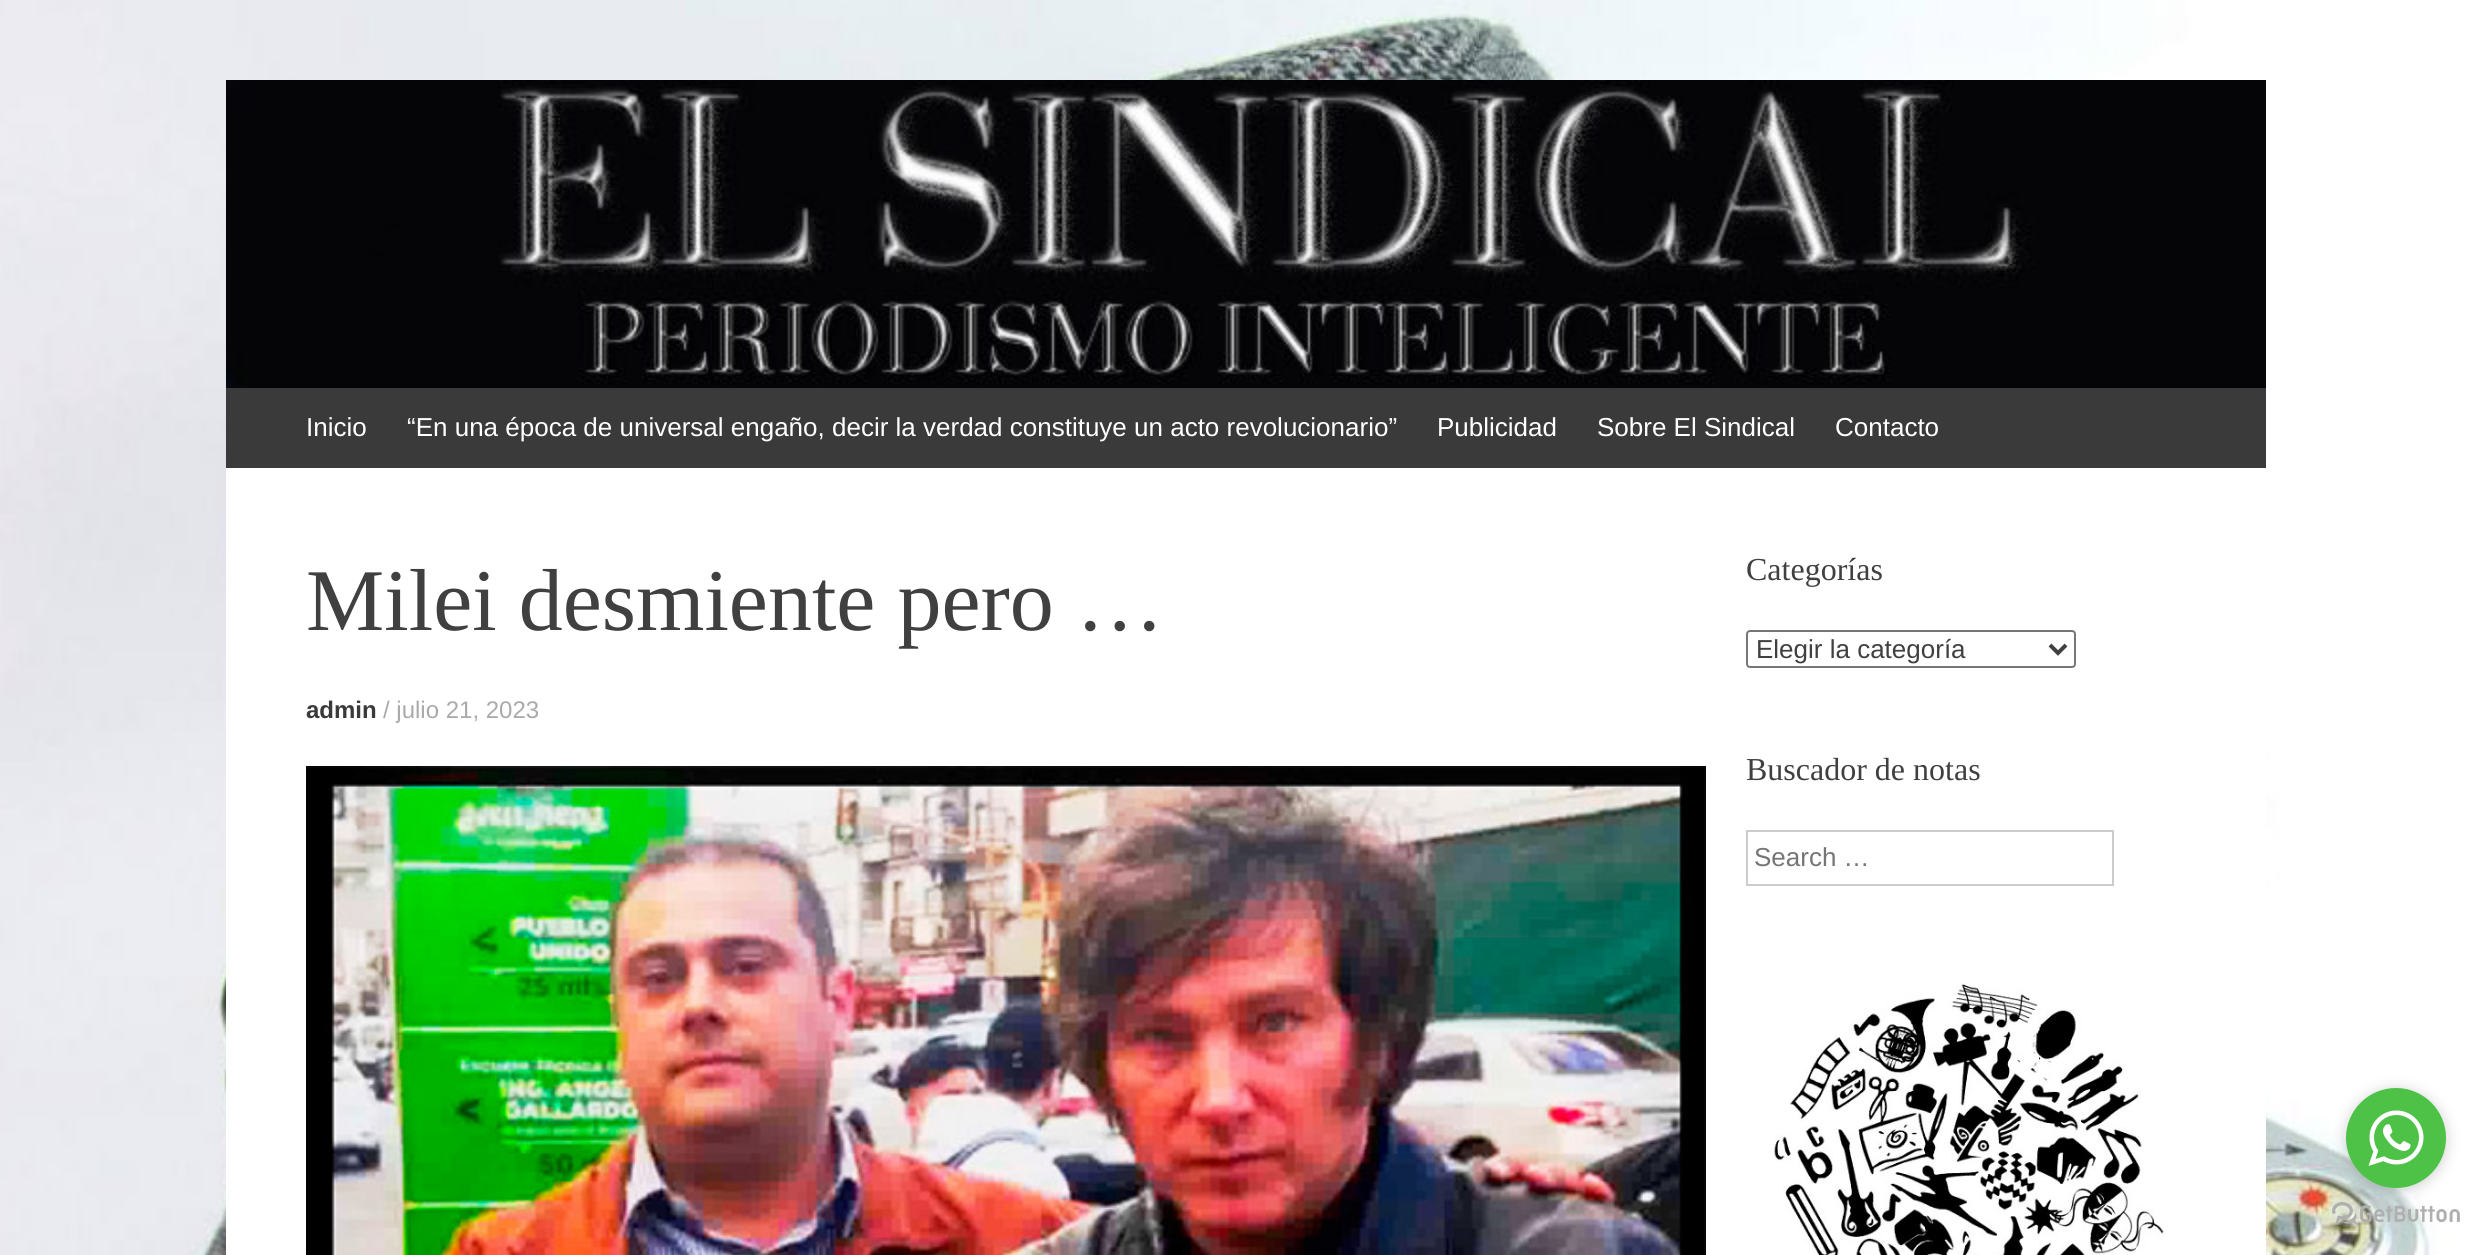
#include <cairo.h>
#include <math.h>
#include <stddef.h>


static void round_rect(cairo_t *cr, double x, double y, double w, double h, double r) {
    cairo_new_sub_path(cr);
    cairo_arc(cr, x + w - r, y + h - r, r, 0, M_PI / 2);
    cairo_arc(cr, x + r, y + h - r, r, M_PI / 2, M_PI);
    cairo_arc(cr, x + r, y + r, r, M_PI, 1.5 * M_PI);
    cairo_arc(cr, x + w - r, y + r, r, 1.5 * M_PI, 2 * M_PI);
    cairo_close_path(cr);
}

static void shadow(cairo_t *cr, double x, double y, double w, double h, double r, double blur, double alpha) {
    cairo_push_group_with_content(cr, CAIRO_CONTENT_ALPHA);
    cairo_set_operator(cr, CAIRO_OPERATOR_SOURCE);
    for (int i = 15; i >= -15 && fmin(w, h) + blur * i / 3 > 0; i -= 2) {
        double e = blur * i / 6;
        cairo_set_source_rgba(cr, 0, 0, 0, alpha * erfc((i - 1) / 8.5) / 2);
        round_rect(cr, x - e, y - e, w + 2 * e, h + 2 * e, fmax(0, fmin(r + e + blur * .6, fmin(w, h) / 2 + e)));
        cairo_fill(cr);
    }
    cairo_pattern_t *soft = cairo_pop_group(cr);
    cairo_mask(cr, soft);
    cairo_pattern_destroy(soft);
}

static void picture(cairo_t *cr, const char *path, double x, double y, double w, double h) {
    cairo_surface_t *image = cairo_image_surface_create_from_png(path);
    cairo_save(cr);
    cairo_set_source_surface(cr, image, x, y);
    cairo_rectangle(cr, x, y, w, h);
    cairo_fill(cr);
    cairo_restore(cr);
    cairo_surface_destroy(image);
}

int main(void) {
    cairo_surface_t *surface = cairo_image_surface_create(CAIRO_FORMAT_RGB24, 2491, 1255);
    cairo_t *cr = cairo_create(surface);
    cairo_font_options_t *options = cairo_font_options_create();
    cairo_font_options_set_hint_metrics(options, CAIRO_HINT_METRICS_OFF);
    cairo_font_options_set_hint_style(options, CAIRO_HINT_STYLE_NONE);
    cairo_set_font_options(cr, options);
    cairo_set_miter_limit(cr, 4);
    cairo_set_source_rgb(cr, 1, 1, 1);
    cairo_paint(cr);
    picture(cr, "img1.png", 0, 0, 2491, 1255);
    cairo_set_source_rgb(cr, 1, 1, 1);
    cairo_rectangle(cr, 226, 468, 2040, 787);
    cairo_fill(cr);
    picture(cr, "img2.png", 226, 80, 2040, 308);
    cairo_set_source_rgb(cr, 0.227, 0.227, 0.227);
    cairo_rectangle(cr, 226, 388, 2040, 80);
    cairo_fill(cr);
    cairo_select_font_face(cr, "Liberation Sans", CAIRO_FONT_SLANT_NORMAL, CAIRO_FONT_WEIGHT_NORMAL);
    cairo_set_font_size(cr, 26);
    cairo_set_source_rgb(cr, 1, 1, 1);
    cairo_move_to(cr, 306, 436);
    cairo_show_text(cr, "Inicio");
    cairo_move_to(cr, 407, 436);
    cairo_show_text(cr, "“En una época de universal engaño, decir la verdad constituye un acto revolucionario”");
    cairo_move_to(cr, 1437, 436);
    cairo_show_text(cr, "Publicidad");
    cairo_move_to(cr, 1597, 436);
    cairo_show_text(cr, "Sobre El Sindical");
    cairo_move_to(cr, 1835, 436);
    cairo_show_text(cr, "Contacto");
    cairo_select_font_face(cr, "Liberation Serif", CAIRO_FONT_SLANT_NORMAL, CAIRO_FONT_WEIGHT_NORMAL);
    cairo_set_font_size(cr, 88);
    cairo_set_source_rgb(cr, 0.251, 0.251, 0.251);
    cairo_move_to(cr, 306, 630);
    cairo_show_text(cr, "Milei desmiente pero …");
    cairo_select_font_face(cr, "Liberation Sans", CAIRO_FONT_SLANT_NORMAL, CAIRO_FONT_WEIGHT_BOLD);
    cairo_set_font_size(cr, 24);
    cairo_set_source_rgb(cr, 0.227, 0.227, 0.227);
    cairo_move_to(cr, 306, 718);
    cairo_show_text(cr, "admin");
    cairo_select_font_face(cr, "Liberation Sans", CAIRO_FONT_SLANT_NORMAL, CAIRO_FONT_WEIGHT_NORMAL);
    cairo_set_source_rgb(cr, 0.667, 0.667, 0.667);
    cairo_move_to(cr, 383, 718);
    cairo_show_text(cr, "/ julio 21, 2023");
    picture(cr, "img3.png", 306, 766, 1400, 489);
    cairo_select_font_face(cr, "Liberation Serif", CAIRO_FONT_SLANT_NORMAL, CAIRO_FONT_WEIGHT_NORMAL);
    cairo_set_font_size(cr, 32);
    cairo_set_source_rgb(cr, 0.251, 0.251, 0.251);
    cairo_move_to(cr, 1746, 580);
    cairo_show_text(cr, "Categorías");
    round_rect(cr, 1747, 631, 328, 36, 3);
    cairo_set_source_rgb(cr, 0.463, 0.463, 0.463);
    cairo_stroke(cr);
    cairo_new_path(cr);
    cairo_move_to(cr, 2050, 645);
    cairo_line_to(cr, 2058, 653);
    cairo_line_to(cr, 2066, 645);
    cairo_set_source_rgb(cr, 0.251, 0.251, 0.251);
    cairo_set_line_width(cr, 4);
    cairo_stroke(cr);
    cairo_select_font_face(cr, "Liberation Sans", CAIRO_FONT_SLANT_NORMAL, CAIRO_FONT_WEIGHT_NORMAL);
    cairo_set_font_size(cr, 26);
    cairo_move_to(cr, 1756, 658);
    cairo_show_text(cr, "Elegir la categoría");
    cairo_select_font_face(cr, "Liberation Serif", CAIRO_FONT_SLANT_NORMAL, CAIRO_FONT_WEIGHT_NORMAL);
    cairo_set_font_size(cr, 32);
    cairo_move_to(cr, 1746, 780);
    cairo_show_text(cr, "Buscador de notas");
    cairo_rectangle(cr, 1747, 831, 366, 54);
    cairo_set_source_rgb(cr, 0.8, 0.8, 0.8);
    cairo_set_line_width(cr, 2);
    cairo_stroke(cr);
    cairo_select_font_face(cr, "Liberation Sans", CAIRO_FONT_SLANT_NORMAL, CAIRO_FONT_WEIGHT_NORMAL);
    cairo_set_font_size(cr, 26);
    cairo_set_source_rgb(cr, 0.459, 0.459, 0.459);
    cairo_move_to(cr, 1754, 866);
    cairo_show_text(cr, "Search …");
    picture(cr, "img4.png", 1774, 983, 391, 272);
    picture(cr, "img6.png", 2332, 1202, 128, 22);
    cairo_set_source_rgb(cr, 0.533, 0.533, 0.533);
    shadow(cr, 2346, 1090, 100, 100, 50, 7, 0.4);
    cairo_set_source_rgb(cr, 0.302, 0.761, 0.278);
    cairo_arc(cr, 2396, 1138, 50, 0, 2 * M_PI);
    cairo_fill(cr);
    picture(cr, "img5.png", 2368, 1110, 56, 56);
    cairo_surface_write_to_png(surface, "page.png");
    cairo_font_options_destroy(options);
    cairo_destroy(cr);
    cairo_surface_destroy(surface);
    return 0;
}
